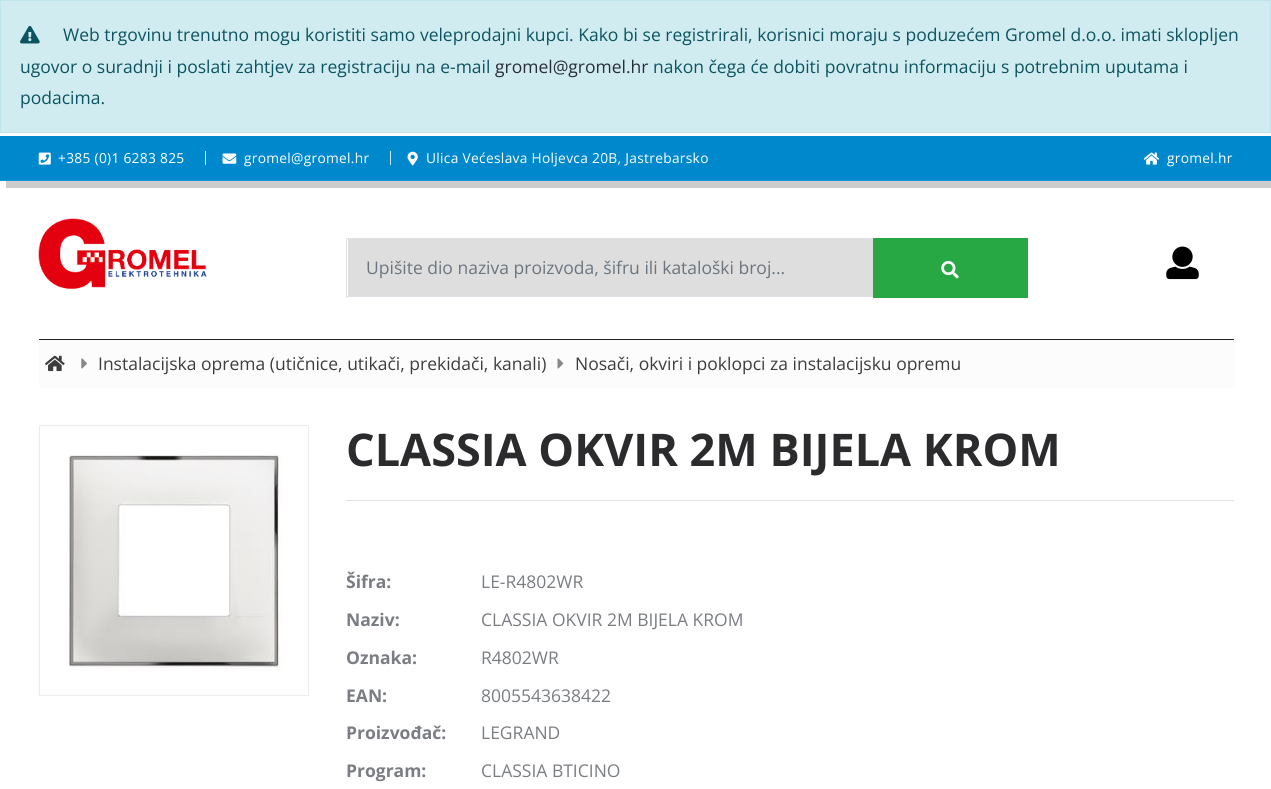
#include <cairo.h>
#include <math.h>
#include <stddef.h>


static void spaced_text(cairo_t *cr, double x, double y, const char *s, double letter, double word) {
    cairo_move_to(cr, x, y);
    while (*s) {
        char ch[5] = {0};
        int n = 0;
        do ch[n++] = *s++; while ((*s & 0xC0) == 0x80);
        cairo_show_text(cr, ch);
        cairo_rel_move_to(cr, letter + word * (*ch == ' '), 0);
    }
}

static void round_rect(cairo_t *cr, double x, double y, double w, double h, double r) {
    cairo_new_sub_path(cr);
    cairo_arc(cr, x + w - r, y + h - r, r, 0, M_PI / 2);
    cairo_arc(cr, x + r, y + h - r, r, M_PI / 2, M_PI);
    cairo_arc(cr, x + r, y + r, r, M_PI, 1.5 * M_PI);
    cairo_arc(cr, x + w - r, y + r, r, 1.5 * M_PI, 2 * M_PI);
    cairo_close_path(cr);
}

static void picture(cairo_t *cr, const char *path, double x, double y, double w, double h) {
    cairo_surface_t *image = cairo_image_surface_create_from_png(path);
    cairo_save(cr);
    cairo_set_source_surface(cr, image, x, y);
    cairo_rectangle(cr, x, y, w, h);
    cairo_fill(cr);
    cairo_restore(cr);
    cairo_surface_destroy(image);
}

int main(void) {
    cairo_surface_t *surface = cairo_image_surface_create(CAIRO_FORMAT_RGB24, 1271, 789);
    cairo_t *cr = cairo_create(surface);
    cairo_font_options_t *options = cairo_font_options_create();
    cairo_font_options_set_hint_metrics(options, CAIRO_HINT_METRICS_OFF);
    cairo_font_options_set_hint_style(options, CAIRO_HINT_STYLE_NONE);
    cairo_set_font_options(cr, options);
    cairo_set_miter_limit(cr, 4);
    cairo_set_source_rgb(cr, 1, 1, 1);
    cairo_paint(cr);
    cairo_set_source_rgb(cr, 0.82, 0.925, 0.945);
    cairo_rectangle(cr, 0.5, 0.5, 1270, 132);
    cairo_fill_preserve(cr);
    cairo_set_source_rgb(cr, 0.745, 0.898, 0.922);
    cairo_set_line_width(cr, 1);
    cairo_stroke(cr);
    picture(cr, "img1.png", 20, 25, 20, 19);
    cairo_select_font_face(cr, "Open Sans", CAIRO_FONT_SLANT_NORMAL, CAIRO_FONT_WEIGHT_NORMAL);
    cairo_set_font_size(cr, 17.5);
    cairo_set_source_rgb(cr, 0.047, 0.329, 0.376);
    cairo_move_to(cr, 63, 41);
    cairo_show_text(cr, "Web trgovinu trenutno mogu koristiti samo veleprodajni kupci. Kako bi se registrirali, korisnici moraju s poduzećem Gromel d.o.o. imati sklopljen");
    cairo_move_to(cr, 20, 73);
    cairo_show_text(cr, "ugovor o suradnji i poslati zahtjev za registraciju na e-mail");
    cairo_set_source_rgb(cr, 0.157, 0.176, 0.231);
    cairo_move_to(cr, 495, 73);
    cairo_show_text(cr, "gromel@gromel.hr");
    cairo_set_source_rgb(cr, 0.047, 0.329, 0.376);
    cairo_move_to(cr, 653, 73);
    cairo_show_text(cr, "nakon čega će dobiti povratnu informaciju s potrebnim uputama i");
    cairo_move_to(cr, 20, 104);
    cairo_show_text(cr, "podacima.");
    cairo_set_source_rgb(cr, 0, 0.533, 0.8);
    cairo_rectangle(cr, 0, 136, 1271, 44);
    cairo_fill(cr);
    cairo_set_source_rgb(cr, 0.8, 0.8, 0.8);
    cairo_new_path(cr);
    cairo_move_to(cr, 6, 181);
    cairo_line_to(cr, 6, 188);
    cairo_line_to(cr, 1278, 188);
    cairo_line_to(cr, 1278, 143);
    cairo_line_to(cr, 1271, 143);
    cairo_line_to(cr, 1271, 181);
    cairo_close_path(cr);
    cairo_fill(cr);
    cairo_set_source_rgb(cr, 0.055, 0.584, 0.851);
    cairo_rectangle(cr, 0, 180, 1271, 1);
    cairo_fill(cr);
    picture(cr, "img2.png", 38, 152, 13, 13);
    cairo_set_font_size(cr, 13.75);
    cairo_set_source_rgb(cr, 1, 1, 1);
    spaced_text(cr, 58, 163, "+385 (0)1 6283 825", 0.3, 0);
    cairo_set_source_rgb(cr, 0.8, 0.906, 0.961);
    cairo_rectangle(cr, 205, 151, 1, 14);
    cairo_fill(cr);
    picture(cr, "img3.png", 222, 153, 15, 11);
    cairo_set_source_rgb(cr, 1, 1, 1);
    spaced_text(cr, 244, 163, "gromel@gromel.hr", 0.3, 0);
    cairo_set_source_rgb(cr, 0.8, 0.906, 0.961);
    cairo_rectangle(cr, 390, 151, 1, 14);
    cairo_fill(cr);
    picture(cr, "img4.png", 407, 151, 11, 15);
    cairo_set_source_rgb(cr, 1, 1, 1);
    spaced_text(cr, 426, 163, "Ulica Većeslava Holjevca 20B, Jastrebarsko", 0.3, 0);
    picture(cr, "img5.png", 1143, 152, 17, 13);
    spaced_text(cr, 1167, 163, "gromel.hr", 0.3, 0);
    picture(cr, "img6.png", 38, 218, 169, 71);
    cairo_set_source_rgb(cr, 0.871, 0.871, 0.871);
    cairo_rectangle(cr, 348, 239, 525, 57);
    cairo_fill(cr);
    cairo_set_source_rgb(cr, 0.871, 0.886, 0.902);
    cairo_rectangle(cr, 346, 238, 528, 1);
    cairo_fill(cr);
    cairo_rectangle(cr, 346, 296, 528, 1);
    cairo_fill(cr);
    cairo_rectangle(cr, 346, 238, 1, 60);
    cairo_fill(cr);
    cairo_set_font_size(cr, 17.5);
    cairo_set_source_rgb(cr, 0.424, 0.459, 0.49);
    cairo_move_to(cr, 366, 274);
    cairo_show_text(cr, "Upišite dio naziva proizvoda, šifru ili kataloški broj...");
    cairo_set_source_rgb(cr, 0.157, 0.655, 0.271);
    cairo_rectangle(cr, 873, 238, 155, 60);
    cairo_fill(cr);
    picture(cr, "img7.png", 941, 260, 18, 19);
    picture(cr, "img8.png", 1166, 246, 33, 34);
    cairo_set_source_rgb(cr, 0.988, 0.988, 0.988);
    round_rect(cr, 39, 339, 1195, 49, 2.5);
    cairo_fill(cr);
    cairo_set_source_rgb(cr, 0.133, 0.133, 0.133);
    cairo_rectangle(cr, 39, 339, 1195, 1);
    cairo_fill(cr);
    picture(cr, "img9.png", 45, 355, 20, 17);
    picture(cr, "img10.png", 81, 358, 6, 11);
    cairo_set_source_rgb(cr, 0.239, 0.239, 0.239);
    cairo_move_to(cr, 98, 370);
    cairo_show_text(cr, "Instalacijska oprema (utičnice, utikači, prekidači, kanali)");
    picture(cr, "img11.png", 557, 358, 7, 11);
    cairo_move_to(cr, 575, 370);
    cairo_show_text(cr, "Nosači, okviri i poklopci za instalacijsku opremu");
    cairo_rectangle(cr, 39.5, 425.5, 269, 270);
    cairo_set_source_rgb(cr, 0.922, 0.922, 0.922);
    cairo_stroke(cr);
    picture(cr, "img12.png", 68, 455, 215, 215);
    cairo_select_font_face(cr, "Open Sans", CAIRO_FONT_SLANT_NORMAL, CAIRO_FONT_WEIGHT_BOLD);
    cairo_set_font_size(cr, 45);
    cairo_set_source_rgb(cr, 0.169, 0.169, 0.176);
    cairo_move_to(cr, 346, 466);
    cairo_show_text(cr, "CLASSIA OKVIR 2M BIJELA KROM");
    cairo_set_source_rgb(cr, 0.875, 0.875, 0.875);
    cairo_rectangle(cr, 346, 500, 888, 1);
    cairo_fill(cr);
    cairo_set_font_size(cr, 17.5);
    cairo_set_source_rgb(cr, 0.478, 0.49, 0.51);
    cairo_move_to(cr, 346, 588);
    cairo_show_text(cr, "Šifra:");
    cairo_select_font_face(cr, "Open Sans", CAIRO_FONT_SLANT_NORMAL, CAIRO_FONT_WEIGHT_NORMAL);
    cairo_move_to(cr, 481, 588);
    cairo_show_text(cr, "LE-R4802WR");
    cairo_select_font_face(cr, "Open Sans", CAIRO_FONT_SLANT_NORMAL, CAIRO_FONT_WEIGHT_BOLD);
    cairo_move_to(cr, 346, 626);
    cairo_show_text(cr, "Naziv:");
    cairo_select_font_face(cr, "Open Sans", CAIRO_FONT_SLANT_NORMAL, CAIRO_FONT_WEIGHT_NORMAL);
    cairo_move_to(cr, 481, 626);
    cairo_show_text(cr, "CLASSIA OKVIR 2M BIJELA KROM");
    cairo_select_font_face(cr, "Open Sans", CAIRO_FONT_SLANT_NORMAL, CAIRO_FONT_WEIGHT_BOLD);
    cairo_move_to(cr, 346, 664);
    cairo_show_text(cr, "Oznaka:");
    cairo_select_font_face(cr, "Open Sans", CAIRO_FONT_SLANT_NORMAL, CAIRO_FONT_WEIGHT_NORMAL);
    cairo_move_to(cr, 481, 664);
    cairo_show_text(cr, "R4802WR");
    cairo_select_font_face(cr, "Open Sans", CAIRO_FONT_SLANT_NORMAL, CAIRO_FONT_WEIGHT_BOLD);
    cairo_move_to(cr, 346, 702);
    cairo_show_text(cr, "EAN:");
    cairo_select_font_face(cr, "Open Sans", CAIRO_FONT_SLANT_NORMAL, CAIRO_FONT_WEIGHT_NORMAL);
    cairo_move_to(cr, 481, 702);
    cairo_show_text(cr, "8005543638422");
    cairo_select_font_face(cr, "Open Sans", CAIRO_FONT_SLANT_NORMAL, CAIRO_FONT_WEIGHT_BOLD);
    cairo_move_to(cr, 346, 739);
    cairo_show_text(cr, "Proizvođač:");
    cairo_select_font_face(cr, "Open Sans", CAIRO_FONT_SLANT_NORMAL, CAIRO_FONT_WEIGHT_NORMAL);
    cairo_move_to(cr, 481, 739);
    cairo_show_text(cr, "LEGRAND");
    cairo_select_font_face(cr, "Open Sans", CAIRO_FONT_SLANT_NORMAL, CAIRO_FONT_WEIGHT_BOLD);
    cairo_move_to(cr, 346, 777);
    cairo_show_text(cr, "Program:");
    cairo_select_font_face(cr, "Open Sans", CAIRO_FONT_SLANT_NORMAL, CAIRO_FONT_WEIGHT_NORMAL);
    cairo_move_to(cr, 481, 777);
    cairo_show_text(cr, "CLASSIA BTICINO");
    cairo_surface_write_to_png(surface, "page.png");
    cairo_font_options_destroy(options);
    cairo_destroy(cr);
    cairo_surface_destroy(surface);
    return 0;
}
